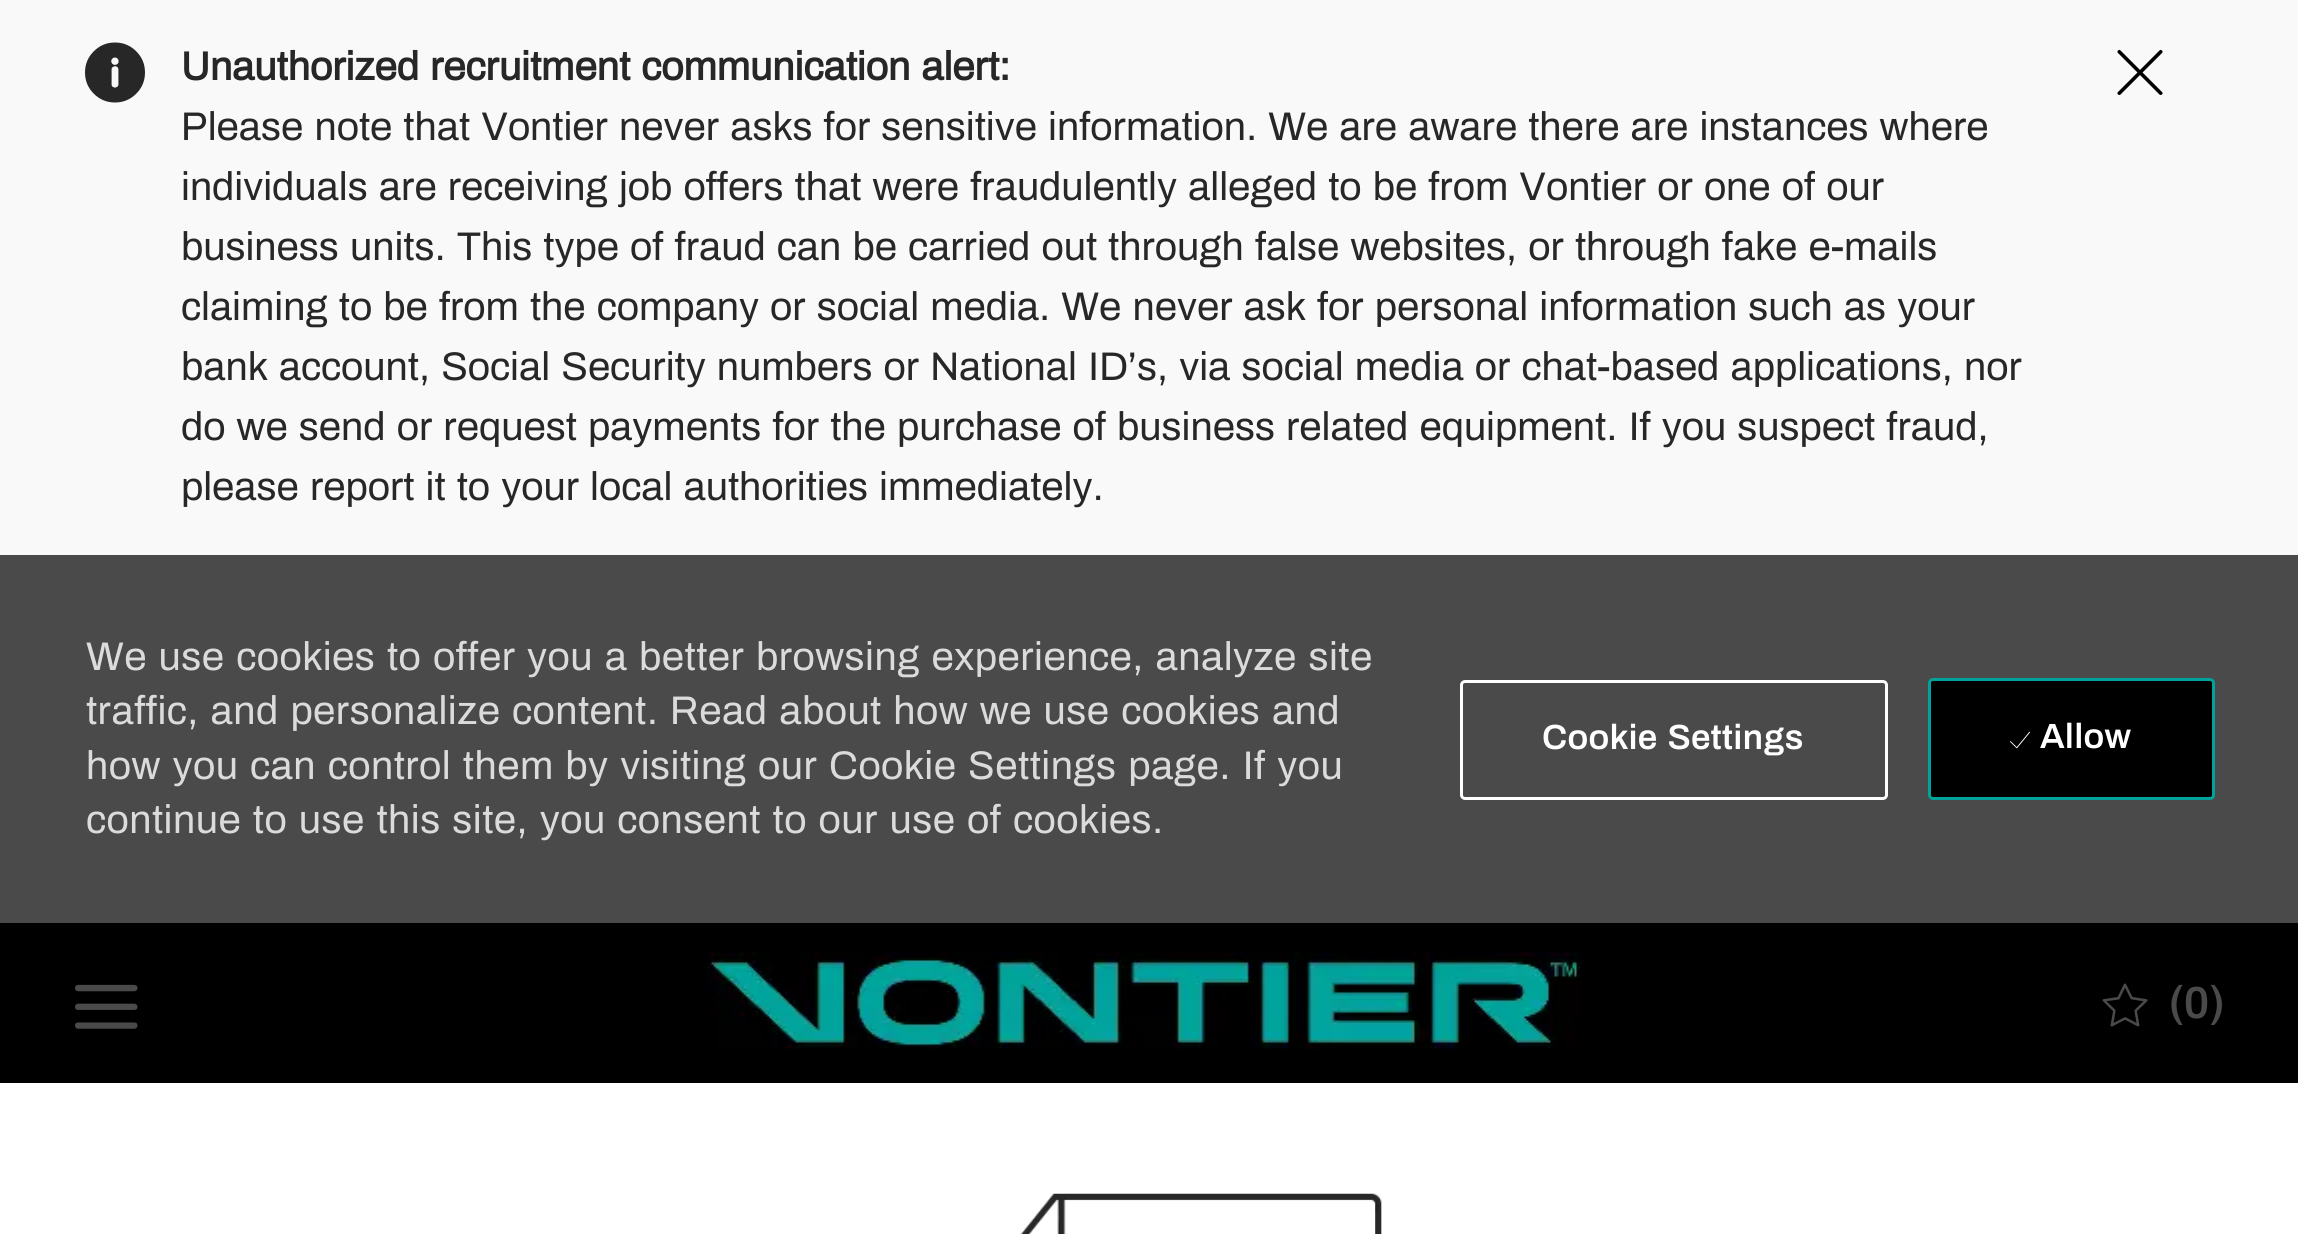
#include <cairo.h>
#include <math.h>
#include <stddef.h>


static void spaced_text(cairo_t *cr, double x, double y, const char *s, double letter, double word) {
    cairo_move_to(cr, x, y);
    while (*s) {
        char ch[5] = {0};
        int n = 0;
        do ch[n++] = *s++; while ((*s & 0xC0) == 0x80);
        cairo_show_text(cr, ch);
        cairo_rel_move_to(cr, letter + word * (*ch == ' '), 0);
    }
}

static void round_rect(cairo_t *cr, double x, double y, double w, double h, double r) {
    cairo_new_sub_path(cr);
    cairo_arc(cr, x + w - r, y + h - r, r, 0, M_PI / 2);
    cairo_arc(cr, x + r, y + h - r, r, M_PI / 2, M_PI);
    cairo_arc(cr, x + r, y + r, r, M_PI, 1.5 * M_PI);
    cairo_arc(cr, x + w - r, y + r, r, 1.5 * M_PI, 2 * M_PI);
    cairo_close_path(cr);
}

static void picture(cairo_t *cr, const char *path, double x, double y, double w, double h) {
    cairo_surface_t *image = cairo_image_surface_create_from_png(path);
    cairo_save(cr);
    cairo_set_source_surface(cr, image, x, y);
    cairo_rectangle(cr, x, y, w, h);
    cairo_fill(cr);
    cairo_restore(cr);
    cairo_surface_destroy(image);
}

int main(void) {
    cairo_surface_t *surface = cairo_image_surface_create(CAIRO_FORMAT_RGB24, 2298, 1234);
    cairo_t *cr = cairo_create(surface);
    cairo_font_options_t *options = cairo_font_options_create();
    cairo_font_options_set_hint_metrics(options, CAIRO_HINT_METRICS_OFF);
    cairo_font_options_set_hint_style(options, CAIRO_HINT_STYLE_NONE);
    cairo_set_font_options(cr, options);
    cairo_set_miter_limit(cr, 4);
    cairo_set_source_rgb(cr, 1, 1, 1);
    cairo_paint(cr);
    cairo_set_source_rgb(cr, 0.973, 0.973, 0.973);
    cairo_rectangle(cr, 0, 0, 2298, 555);
    cairo_fill(cr);
    picture(cr, "img1.png", 85, 42, 60, 61);
    cairo_select_font_face(cr, "Archivo", CAIRO_FONT_SLANT_NORMAL, CAIRO_FONT_WEIGHT_BOLD);
    cairo_set_font_size(cr, 40);
    cairo_set_source_rgb(cr, 0.153, 0.153, 0.153);
    cairo_move_to(cr, 181, 80);
    cairo_show_text(cr, "Unauthorized recruitment communication alert:");
    cairo_select_font_face(cr, "Archivo", CAIRO_FONT_SLANT_NORMAL, CAIRO_FONT_WEIGHT_NORMAL);
    cairo_move_to(cr, 181, 140);
    cairo_show_text(cr, "Please note that Vontier never asks for sensitive information. We are aware there are instances where");
    cairo_move_to(cr, 181, 200);
    cairo_show_text(cr, "individuals are receiving job offers that were fraudulently alleged to be from Vontier or one of our");
    cairo_move_to(cr, 181, 260);
    cairo_show_text(cr, "business units. This type of fraud can be carried out through false websites, or through fake e-mails");
    cairo_move_to(cr, 181, 320);
    cairo_show_text(cr, "claiming to be from the company or social media. We never ask for personal information such as your");
    cairo_move_to(cr, 181, 380);
    cairo_show_text(cr, "bank account, Social Security numbers or National ID’s, via social media or chat-based applications, nor");
    cairo_move_to(cr, 181, 440);
    cairo_show_text(cr, "do we send or request payments for the purchase of business related equipment. If you suspect fraud,");
    cairo_move_to(cr, 181, 500);
    cairo_show_text(cr, "please report it to your local authorities immediately.");
    picture(cr, "img2.png", 2117, 49, 46, 46);
    cairo_set_source_rgb(cr, 0.29, 0.29, 0.29);
    cairo_rectangle(cr, 0, 555, 2298, 368);
    cairo_fill(cr);
    cairo_set_source_rgb(cr, 0.859, 0.859, 0.859);
    spaced_text(cr, 86, 670, "We use cookies to offer you a better browsing experience, analyze site", 0.5, 0);
    spaced_text(cr, 86, 724, "traffic, and personalize content. Read about how we use cookies and", 0.5, 0);
    spaced_text(cr, 86, 779, "how you can control them by visiting our Cookie Settings page. If you", 0.5, 0);
    spaced_text(cr, 86, 833, "continue to use this site, you consent to our use of cookies.", 0.5, 0);
    round_rect(cr, 1461.5, 681.5, 425, 117, 3.5);
    cairo_set_source_rgb(cr, 1, 1, 1);
    cairo_set_line_width(cr, 3);
    cairo_stroke(cr);
    cairo_select_font_face(cr, "Archivo SemiBold", CAIRO_FONT_SLANT_NORMAL, CAIRO_FONT_WEIGHT_NORMAL);
    cairo_set_font_size(cr, 35);
    spaced_text(cr, 1542, 749, "Cookie Settings", 0.25, 0);
    cairo_set_source_rgb(cr, 0, 0, 0);
    round_rect(cr, 1929.5, 679.5, 284, 119, 3.5);
    cairo_fill_preserve(cr);
    cairo_set_source_rgb(cr, 0, 0.639, 0.608);
    cairo_stroke(cr);
    picture(cr, "img3.png", 2010, 731, 20, 18);
    cairo_set_source_rgb(cr, 1, 1, 1);
    spaced_text(cr, 2040, 748, "Allow", 0.25, 0);
    cairo_set_source_rgb(cr, 0, 0, 0);
    cairo_rectangle(cr, 0, 923, 2298, 160);
    cairo_fill(cr);
    picture(cr, "img4.png", 75, 984, 63, 45);
    picture(cr, "img5.png", 707, 952, 875, 98);
    picture(cr, "img6.png", 2102, 983, 46, 44);
    cairo_set_font_size(cr, 45);
    cairo_set_source_rgb(cr, 0.29, 0.29, 0.29);
    cairo_move_to(cr, 2169, 1018);
    cairo_show_text(cr, "(0)");
    picture(cr, "img7.png", 1020, 1193, 362, 41);
    cairo_surface_write_to_png(surface, "page.png");
    cairo_font_options_destroy(options);
    cairo_destroy(cr);
    cairo_surface_destroy(surface);
    return 0;
}
